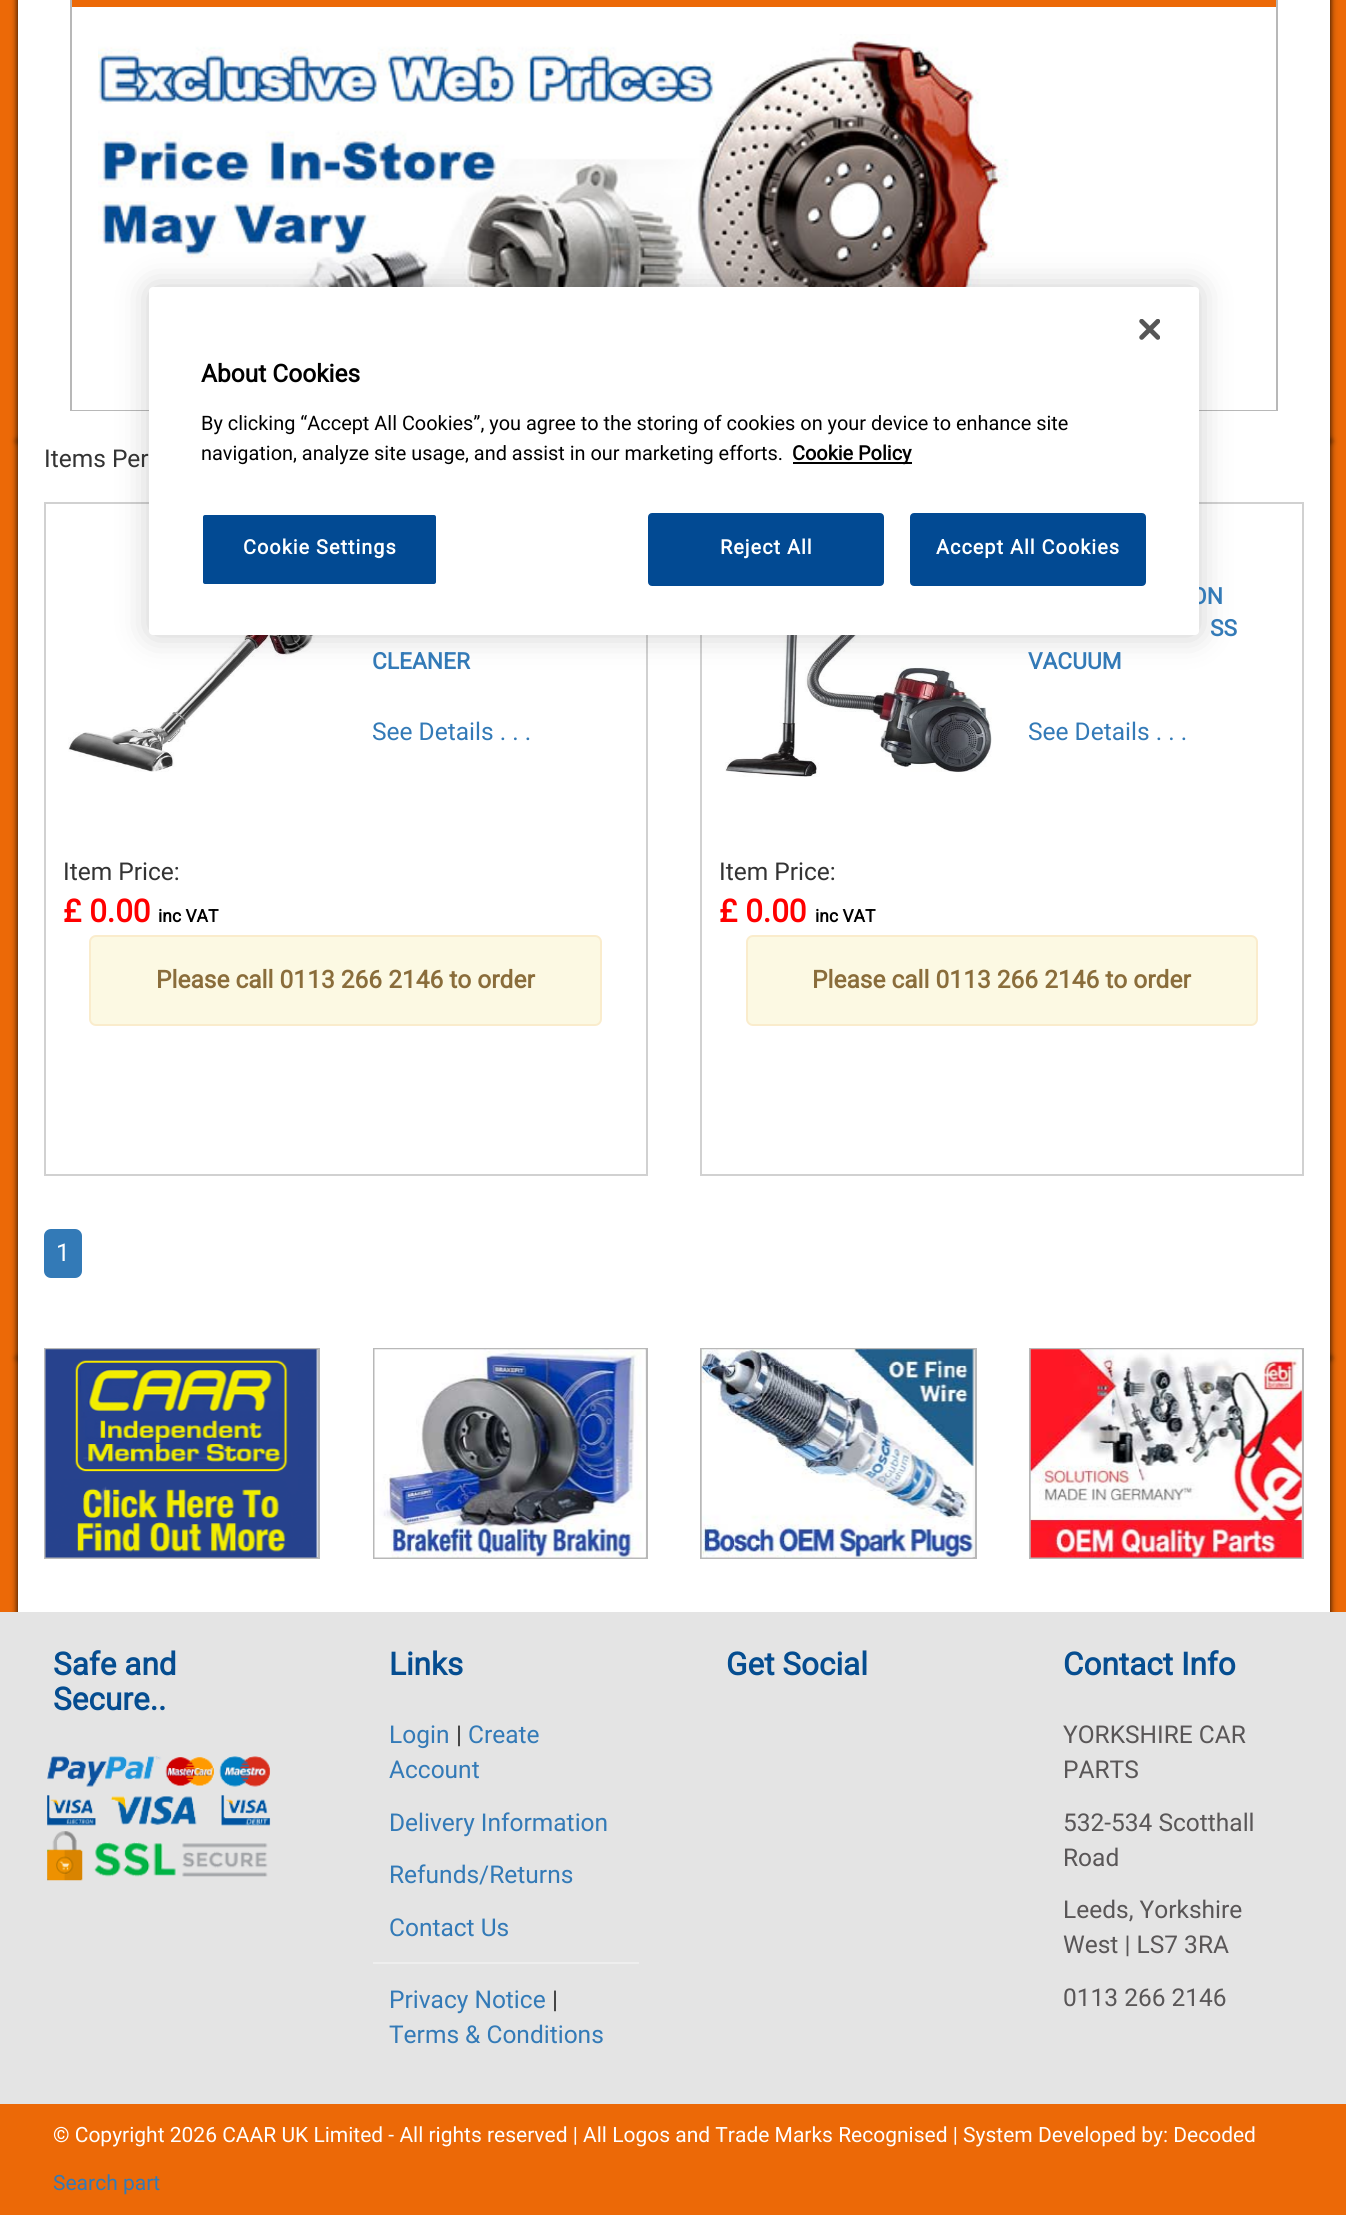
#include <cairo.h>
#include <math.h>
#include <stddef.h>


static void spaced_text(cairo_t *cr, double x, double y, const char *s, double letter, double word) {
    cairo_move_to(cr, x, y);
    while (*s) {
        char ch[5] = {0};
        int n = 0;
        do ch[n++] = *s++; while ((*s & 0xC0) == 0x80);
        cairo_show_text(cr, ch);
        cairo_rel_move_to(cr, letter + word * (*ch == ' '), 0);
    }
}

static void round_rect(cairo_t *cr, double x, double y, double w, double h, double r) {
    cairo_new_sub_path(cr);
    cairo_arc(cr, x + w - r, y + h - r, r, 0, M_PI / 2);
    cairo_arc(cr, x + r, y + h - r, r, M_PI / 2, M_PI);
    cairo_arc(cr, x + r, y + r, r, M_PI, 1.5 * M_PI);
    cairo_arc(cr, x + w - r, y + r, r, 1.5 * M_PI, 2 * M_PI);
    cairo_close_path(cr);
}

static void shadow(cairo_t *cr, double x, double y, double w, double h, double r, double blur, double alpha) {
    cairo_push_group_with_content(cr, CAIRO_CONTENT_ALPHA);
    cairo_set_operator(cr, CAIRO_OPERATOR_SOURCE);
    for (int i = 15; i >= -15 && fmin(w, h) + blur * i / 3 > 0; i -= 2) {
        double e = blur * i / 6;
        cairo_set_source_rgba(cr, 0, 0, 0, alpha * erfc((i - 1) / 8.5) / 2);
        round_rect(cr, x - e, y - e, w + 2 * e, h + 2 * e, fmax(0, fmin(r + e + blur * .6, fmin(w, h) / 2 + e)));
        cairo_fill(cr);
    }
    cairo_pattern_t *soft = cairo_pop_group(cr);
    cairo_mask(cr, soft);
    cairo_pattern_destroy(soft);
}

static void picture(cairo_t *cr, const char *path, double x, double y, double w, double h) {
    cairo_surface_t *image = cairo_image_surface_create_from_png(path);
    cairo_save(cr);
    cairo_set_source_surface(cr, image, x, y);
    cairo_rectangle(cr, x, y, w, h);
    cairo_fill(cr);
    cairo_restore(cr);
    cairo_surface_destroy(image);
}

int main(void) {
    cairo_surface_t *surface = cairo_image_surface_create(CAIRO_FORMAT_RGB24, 1346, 2215);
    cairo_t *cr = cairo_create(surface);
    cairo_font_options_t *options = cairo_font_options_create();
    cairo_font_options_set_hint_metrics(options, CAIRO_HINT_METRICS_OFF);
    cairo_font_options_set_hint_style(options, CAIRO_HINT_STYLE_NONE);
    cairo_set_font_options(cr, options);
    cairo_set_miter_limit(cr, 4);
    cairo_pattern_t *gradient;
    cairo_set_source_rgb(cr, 0.922, 0.412, 0.031);
    cairo_paint(cr);
    cairo_set_source_rgb(cr, 0, 0, 0);
    shadow(cr, 18, -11, 1312, 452, 0, 3.5, 1);
    cairo_set_source_rgb(cr, 1, 1, 1);
    cairo_rectangle(cr, 18, 0, 1312, 431);
    cairo_fill(cr);
    cairo_rectangle(cr, 71, -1, 1206, 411);
    cairo_set_source_rgb(cr, 0.722, 0.722, 0.722);
    cairo_stroke(cr);
    cairo_set_source_rgb(cr, 1, 1, 1);
    cairo_rectangle(cr, 72, 409, 1204, 1);
    cairo_fill(cr);
    picture(cr, "img2.png", 98, 34, 915, 349);
    cairo_set_source_rgb(cr, 0, 0, 0);
    shadow(cr, 18, 441, 1312, 917, 0, 3.5, 1);
    cairo_set_source_rgb(cr, 1, 1, 1);
    cairo_rectangle(cr, 18, 431, 1312, 917);
    cairo_fill(cr);
    cairo_rectangle(cr, 45, 503, 602, 672);
    cairo_set_source_rgb(cr, 0.82, 0.82, 0.82);
    cairo_stroke(cr);
    picture(cr, "img3.png", 68, 549, 268, 223);
    cairo_rectangle(cr, 701, 503, 602, 672);
    cairo_stroke(cr);
    picture(cr, "img4.png", 725, 635, 267, 142);
    cairo_set_source_rgb(cr, 0, 0, 0);
    shadow(cr, 149, 287, 1050, 348, 4, 16, 0.2);
    cairo_select_font_face(cr, "Roboto", CAIRO_FONT_SLANT_NORMAL, CAIRO_FONT_WEIGHT_BOLD);
    cairo_set_font_size(cr, 22.75);
    cairo_set_source_rgb(cr, 0.2, 0.478, 0.718);
    cairo_move_to(cr, 1191, 604);
    cairo_show_text(cr, "ON");
    cairo_set_source_rgb(cr, 1, 1, 1);
    round_rect(cr, 149, 287, 1050, 348, 4);
    cairo_fill(cr);
    picture(cr, "img1.png", 1139, 319, 21, 21);
    cairo_set_font_size(cr, 24.5);
    cairo_set_source_rgb(cr, 0, 0, 0);
    cairo_move_to(cr, 201, 382);
    cairo_show_text(cr, "About Cookies");
    cairo_select_font_face(cr, "Roboto", CAIRO_FONT_SLANT_NORMAL, CAIRO_FONT_WEIGHT_NORMAL);
    cairo_set_font_size(cr, 19.9);
    cairo_move_to(cr, 201, 430);
    cairo_show_text(cr, "By clicking “Accept All Cookies”, you agree to the storing of cookies on your device to enhance site");
    cairo_move_to(cr, 201, 460);
    cairo_show_text(cr, "navigation, analyze site usage, and assist in our marketing efforts.");
    cairo_rectangle(cr, 793, 462, 119, 2);
    cairo_fill(cr);
    cairo_select_font_face(cr, "Roboto", CAIRO_FONT_SLANT_NORMAL, CAIRO_FONT_WEIGHT_BOLD);
    cairo_move_to(cr, 792, 460);
    cairo_show_text(cr, "Cookie Policy");
    cairo_set_source_rgb(cr, 0.008, 0.29, 0.576);
    round_rect(cr, 202, 514, 235, 71, 3);
    cairo_fill_preserve(cr);
    cairo_set_source_rgb(cr, 1, 1, 1);
    cairo_stroke(cr);
    spaced_text(cr, 243, 554, "Cookie Settings", 1, 0);
    cairo_set_source_rgb(cr, 0.008, 0.29, 0.576);
    round_rect(cr, 649, 514, 234, 71, 3);
    cairo_fill_preserve(cr);
    cairo_stroke(cr);
    cairo_set_source_rgb(cr, 1, 1, 1);
    spaced_text(cr, 720, 554, "Reject All", 1, 0);
    cairo_set_source_rgb(cr, 0.008, 0.29, 0.576);
    round_rect(cr, 911, 514, 234, 71, 3);
    cairo_fill_preserve(cr);
    cairo_stroke(cr);
    cairo_set_source_rgb(cr, 1, 1, 1);
    spaced_text(cr, 936, 554, "Accept All Cookies", 1, 0);
    cairo_set_source_rgb(cr, 0.922, 0.412, 0.031);
    cairo_rectangle(cr, 72, 0, 1204, 7);
    cairo_fill(cr);
    cairo_select_font_face(cr, "Roboto", CAIRO_FONT_SLANT_NORMAL, CAIRO_FONT_WEIGHT_NORMAL);
    cairo_set_font_size(cr, 24.5);
    cairo_set_source_rgb(cr, 0.2, 0.2, 0.2);
    cairo_move_to(cr, 44, 467);
    cairo_show_text(cr, "Items Per");
    cairo_select_font_face(cr, "Roboto", CAIRO_FONT_SLANT_NORMAL, CAIRO_FONT_WEIGHT_BOLD);
    cairo_set_font_size(cr, 22.75);
    cairo_set_source_rgb(cr, 0.2, 0.478, 0.718);
    cairo_move_to(cr, 372, 669);
    cairo_show_text(cr, "CLEANER");
    cairo_select_font_face(cr, "Roboto", CAIRO_FONT_SLANT_NORMAL, CAIRO_FONT_WEIGHT_NORMAL);
    cairo_set_font_size(cr, 24.5);
    cairo_move_to(cr, 372, 740);
    cairo_show_text(cr, "See Details . . .");
    cairo_set_source_rgb(cr, 0.2, 0.2, 0.2);
    cairo_move_to(cr, 63, 880);
    cairo_show_text(cr, "Item Price:");
    cairo_select_font_face(cr, "Roboto", CAIRO_FONT_SLANT_NORMAL, CAIRO_FONT_WEIGHT_BOLD);
    cairo_set_font_size(cr, 31.5);
    cairo_set_source_rgb(cr, 1, 0, 0);
    cairo_move_to(cr, 63, 922);
    cairo_show_text(cr, "£ 0.00");
    cairo_set_font_size(cr, 17.5);
    cairo_set_source_rgb(cr, 0, 0, 0);
    cairo_move_to(cr, 158, 922);
    cairo_show_text(cr, "inc VAT");
    cairo_set_source_rgb(cr, 0.988, 0.973, 0.89);
    round_rect(cr, 90, 936, 511, 89, 6);
    cairo_fill_preserve(cr);
    cairo_set_source_rgb(cr, 0.98, 0.922, 0.8);
    cairo_stroke(cr);
    cairo_set_font_size(cr, 24.5);
    cairo_set_source_rgb(cr, 0.541, 0.427, 0.231);
    cairo_move_to(cr, 156, 988);
    cairo_show_text(cr, "Please call 0113 266 2146 to order");
    cairo_set_font_size(cr, 22.75);
    cairo_set_source_rgb(cr, 0.2, 0.478, 0.718);
    cairo_move_to(cr, 1210, 636);
    cairo_show_text(cr, "SS");
    cairo_move_to(cr, 1028, 669);
    cairo_show_text(cr, "VACUUM");
    cairo_select_font_face(cr, "Roboto", CAIRO_FONT_SLANT_NORMAL, CAIRO_FONT_WEIGHT_NORMAL);
    cairo_set_font_size(cr, 24.5);
    cairo_move_to(cr, 1028, 740);
    cairo_show_text(cr, "See Details . . .");
    cairo_set_source_rgb(cr, 0.2, 0.2, 0.2);
    cairo_move_to(cr, 719, 880);
    cairo_show_text(cr, "Item Price:");
    cairo_select_font_face(cr, "Roboto", CAIRO_FONT_SLANT_NORMAL, CAIRO_FONT_WEIGHT_BOLD);
    cairo_set_font_size(cr, 31.5);
    cairo_set_source_rgb(cr, 1, 0, 0);
    cairo_move_to(cr, 719, 922);
    cairo_show_text(cr, "£ 0.00");
    cairo_set_font_size(cr, 17.5);
    cairo_set_source_rgb(cr, 0, 0, 0);
    cairo_move_to(cr, 815, 922);
    cairo_show_text(cr, "inc VAT");
    cairo_set_source_rgb(cr, 0.988, 0.973, 0.89);
    round_rect(cr, 747, 936, 510, 89, 6);
    cairo_fill_preserve(cr);
    cairo_set_source_rgb(cr, 0.98, 0.922, 0.8);
    cairo_stroke(cr);
    cairo_set_font_size(cr, 24.5);
    cairo_set_source_rgb(cr, 0.541, 0.427, 0.231);
    cairo_move_to(cr, 812, 988);
    cairo_show_text(cr, "Please call 0113 266 2146 to order");
    cairo_set_source_rgb(cr, 0.2, 0.478, 0.718);
    round_rect(cr, 45, 1230, 36, 47, 6);
    cairo_fill_preserve(cr);
    cairo_stroke(cr);
    cairo_select_font_face(cr, "Roboto", CAIRO_FONT_SLANT_NORMAL, CAIRO_FONT_WEIGHT_NORMAL);
    cairo_set_source_rgb(cr, 1, 1, 1);
    cairo_move_to(cr, 56, 1261);
    cairo_show_text(cr, "1");
    cairo_set_source_rgb(cr, 0, 0, 0);
    shadow(cr, 18, 1358, 1312, 264, 0, 3.5, 1);
    cairo_set_source_rgb(cr, 1, 1, 1);
    cairo_rectangle(cr, 18, 1348, 1312, 264);
    cairo_fill(cr);
    gradient = cairo_pattern_create_linear(182, 1349, 182, 1630);
    cairo_pattern_add_color_stop_rgba(gradient, 0, 0.859, 0.859, 0.859, 1);
    cairo_pattern_add_color_stop_rgba(gradient, 0.45, 0.98, 0.98, 0.98, 1);
    cairo_pattern_add_color_stop_rgba(gradient, 1, 0.922, 0.922, 0.922, 1);
    cairo_set_source(cr, gradient);
    cairo_pattern_destroy(gradient);
    cairo_rectangle(cr, 91, 1350, 227, 207);
    cairo_fill(cr);
    cairo_rectangle(cr, 45, 1349, 274, 209);
    cairo_set_source_rgb(cr, 0.722, 0.722, 0.722);
    cairo_stroke(cr);
    picture(cr, "img5.png", 45, 1349, 273, 209);
    gradient = cairo_pattern_create_linear(510, 1349, 510, 1630);
    cairo_pattern_add_color_stop_rgba(gradient, 0, 0.859, 0.859, 0.859, 1);
    cairo_pattern_add_color_stop_rgba(gradient, 0.45, 0.98, 0.98, 0.98, 1);
    cairo_pattern_add_color_stop_rgba(gradient, 1, 0.922, 0.922, 0.922, 1);
    cairo_set_source(cr, gradient);
    cairo_pattern_destroy(gradient);
    cairo_rectangle(cr, 645, 1350, 1, 207);
    cairo_fill(cr);
    cairo_rectangle(cr, 374, 1349, 273, 209);
    cairo_set_source_rgb(cr, 0.722, 0.722, 0.722);
    cairo_stroke(cr);
    picture(cr, "img6.png", 374, 1349, 272, 209);
    gradient = cairo_pattern_create_linear(838, 1349, 838, 1630);
    cairo_pattern_add_color_stop_rgba(gradient, 0, 0.859, 0.859, 0.859, 1);
    cairo_pattern_add_color_stop_rgba(gradient, 0.45, 0.98, 0.98, 0.98, 1);
    cairo_pattern_add_color_stop_rgba(gradient, 1, 0.922, 0.922, 0.922, 1);
    cairo_set_source(cr, gradient);
    cairo_pattern_destroy(gradient);
    cairo_rectangle(cr, 972, 1350, 3, 207);
    cairo_fill(cr);
    cairo_rectangle(cr, 701, 1349, 275, 209);
    cairo_set_source_rgb(cr, 0.722, 0.722, 0.722);
    cairo_stroke(cr);
    picture(cr, "img7.png", 701, 1349, 273, 209);
    cairo_rectangle(cr, 1030, 1349, 273, 209);
    cairo_stroke(cr);
    picture(cr, "img8.png", 1030, 1349, 272, 209);
    cairo_set_source_rgb(cr, 0.894, 0.894, 0.894);
    cairo_rectangle(cr, 0, 1612, 1346, 492);
    cairo_fill(cr);
    cairo_select_font_face(cr, "Roboto", CAIRO_FONT_SLANT_NORMAL, CAIRO_FONT_WEIGHT_BOLD);
    cairo_set_font_size(cr, 31.5);
    cairo_set_source_rgb(cr, 0.02, 0.302, 0.565);
    cairo_move_to(cr, 53, 1675);
    cairo_show_text(cr, "Safe and");
    cairo_move_to(cr, 53, 1710);
    cairo_show_text(cr, "Secure..");
    picture(cr, "img9.png", 47, 1756, 224, 125);
    cairo_move_to(cr, 389, 1675);
    cairo_show_text(cr, "Links");
    cairo_select_font_face(cr, "Roboto", CAIRO_FONT_SLANT_NORMAL, CAIRO_FONT_WEIGHT_NORMAL);
    cairo_set_font_size(cr, 24.5);
    cairo_set_source_rgb(cr, 0.2, 0.478, 0.718);
    cairo_move_to(cr, 389, 1743);
    cairo_show_text(cr, "Login");
    cairo_set_source_rgb(cr, 0.2, 0.2, 0.2);
    cairo_move_to(cr, 456, 1743);
    cairo_show_text(cr, "|");
    cairo_set_source_rgb(cr, 0.2, 0.478, 0.718);
    cairo_move_to(cr, 468, 1743);
    cairo_show_text(cr, "Create");
    cairo_move_to(cr, 389, 1778);
    cairo_show_text(cr, "Account");
    cairo_move_to(cr, 389, 1831);
    cairo_show_text(cr, "Delivery Information");
    cairo_move_to(cr, 389, 1883);
    cairo_show_text(cr, "Refunds/Returns");
    cairo_move_to(cr, 389, 1936);
    cairo_show_text(cr, "Contact Us");
    cairo_set_source_rgb(cr, 0.933, 0.933, 0.933);
    cairo_rectangle(cr, 373, 1962, 266, 2);
    cairo_fill(cr);
    cairo_set_source_rgb(cr, 0.2, 0.478, 0.718);
    cairo_move_to(cr, 389, 2008);
    cairo_show_text(cr, "Privacy Notice");
    cairo_set_source_rgb(cr, 0.2, 0.2, 0.2);
    cairo_move_to(cr, 552, 2008);
    cairo_show_text(cr, "|");
    cairo_set_source_rgb(cr, 0.2, 0.478, 0.718);
    cairo_move_to(cr, 389, 2043);
    cairo_show_text(cr, "Terms & Conditions");
    cairo_select_font_face(cr, "Roboto", CAIRO_FONT_SLANT_NORMAL, CAIRO_FONT_WEIGHT_BOLD);
    cairo_set_font_size(cr, 31.5);
    cairo_set_source_rgb(cr, 0.02, 0.302, 0.565);
    cairo_move_to(cr, 726, 1675);
    cairo_show_text(cr, "Get Social");
    cairo_move_to(cr, 1063, 1675);
    cairo_show_text(cr, "Contact Info");
    cairo_select_font_face(cr, "Roboto", CAIRO_FONT_SLANT_NORMAL, CAIRO_FONT_WEIGHT_NORMAL);
    cairo_set_font_size(cr, 24.5);
    cairo_set_source_rgb(cr, 0.349, 0.337, 0.341);
    cairo_move_to(cr, 1063, 1743);
    cairo_show_text(cr, "YORKSHIRE CAR");
    cairo_move_to(cr, 1063, 1778);
    cairo_show_text(cr, "PARTS");
    cairo_move_to(cr, 1063, 1831);
    cairo_show_text(cr, "532-534 Scotthall");
    cairo_move_to(cr, 1063, 1866);
    cairo_show_text(cr, "Road");
    cairo_move_to(cr, 1063, 1918);
    cairo_show_text(cr, "Leeds, Yorkshire");
    cairo_move_to(cr, 1063, 1953);
    cairo_show_text(cr, "West | LS7 3RA");
    cairo_move_to(cr, 1063, 2006);
    cairo_show_text(cr, "0113 266 2146");
    cairo_set_font_size(cr, 21);
    cairo_set_source_rgb(cr, 1, 1, 1);
    cairo_move_to(cr, 53, 2142);
    cairo_show_text(cr, "© Copyright 2026 CAAR UK Limited - All rights reserved | All Logos and Trade Marks Recognised | System Developed by: Decoded");
    cairo_set_source_rgb(cr, 0.2, 0.478, 0.718);
    cairo_move_to(cr, 53, 2190);
    cairo_show_text(cr, "Search part");
    cairo_surface_write_to_png(surface, "page.png");
    cairo_font_options_destroy(options);
    cairo_destroy(cr);
    cairo_surface_destroy(surface);
    return 0;
}
